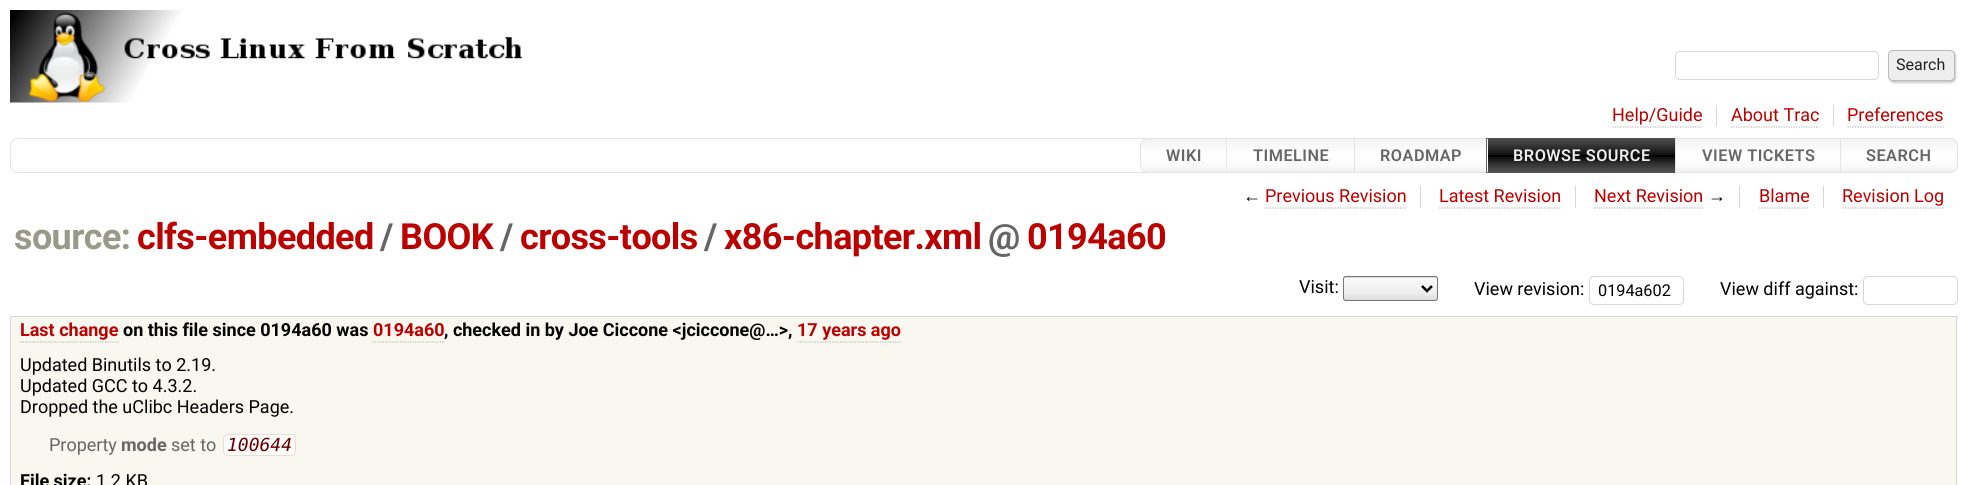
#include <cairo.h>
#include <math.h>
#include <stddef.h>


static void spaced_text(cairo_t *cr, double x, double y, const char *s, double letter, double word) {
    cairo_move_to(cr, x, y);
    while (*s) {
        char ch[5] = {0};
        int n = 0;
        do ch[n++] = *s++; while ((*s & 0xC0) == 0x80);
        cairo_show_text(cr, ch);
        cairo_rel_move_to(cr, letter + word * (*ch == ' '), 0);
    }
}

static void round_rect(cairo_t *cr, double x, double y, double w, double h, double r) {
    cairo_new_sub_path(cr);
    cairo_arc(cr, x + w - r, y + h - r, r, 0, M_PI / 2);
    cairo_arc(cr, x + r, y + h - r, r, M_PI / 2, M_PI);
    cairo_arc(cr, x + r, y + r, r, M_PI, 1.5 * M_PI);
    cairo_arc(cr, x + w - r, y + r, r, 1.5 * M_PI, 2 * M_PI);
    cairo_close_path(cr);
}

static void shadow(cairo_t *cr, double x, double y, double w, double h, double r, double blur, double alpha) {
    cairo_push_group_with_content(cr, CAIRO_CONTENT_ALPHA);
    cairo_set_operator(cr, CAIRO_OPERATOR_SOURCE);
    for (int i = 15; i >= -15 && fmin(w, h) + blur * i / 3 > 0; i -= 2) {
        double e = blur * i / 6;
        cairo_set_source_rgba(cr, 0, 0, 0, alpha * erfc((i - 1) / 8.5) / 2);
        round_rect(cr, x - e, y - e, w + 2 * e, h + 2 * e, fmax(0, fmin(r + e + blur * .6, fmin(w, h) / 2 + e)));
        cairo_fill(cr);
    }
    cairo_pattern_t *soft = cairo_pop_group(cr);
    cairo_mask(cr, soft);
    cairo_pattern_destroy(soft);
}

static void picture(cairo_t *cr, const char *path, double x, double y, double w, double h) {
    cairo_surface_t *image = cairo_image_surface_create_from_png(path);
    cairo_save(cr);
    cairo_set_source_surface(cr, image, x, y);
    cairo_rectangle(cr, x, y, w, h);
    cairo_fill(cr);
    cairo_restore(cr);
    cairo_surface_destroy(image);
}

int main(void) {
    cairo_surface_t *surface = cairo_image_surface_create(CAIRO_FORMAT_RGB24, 1967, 485);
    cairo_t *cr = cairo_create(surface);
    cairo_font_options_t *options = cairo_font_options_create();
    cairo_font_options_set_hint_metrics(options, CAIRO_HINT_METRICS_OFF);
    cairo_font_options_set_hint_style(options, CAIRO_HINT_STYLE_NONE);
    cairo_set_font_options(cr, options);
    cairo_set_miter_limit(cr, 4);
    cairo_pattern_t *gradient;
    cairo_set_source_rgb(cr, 1, 1, 1);
    cairo_paint(cr);
    picture(cr, "img1.png", 10, 10, 512, 93);
    round_rect(cr, 1675.5, 51.5, 203, 28, 4.5);
    cairo_set_source_rgb(cr, 0.843, 0.843, 0.843);
    cairo_set_line_width(cr, 1);
    cairo_stroke(cr);
    cairo_set_source_rgb(cr, 0.8, 0.8, 0.8);
    shadow(cr, 1889, 51, 67, 32, 5, 1, 1);
    cairo_set_source_rgb(cr, 0.933, 0.933, 0.933);
    round_rect(cr, 1888.5, 50.5, 66, 30, 4.5);
    cairo_fill_preserve(cr);
    cairo_set_source_rgb(cr, 0.733, 0.733, 0.733);
    cairo_stroke(cr);
    cairo_select_font_face(cr, "Roboto", CAIRO_FONT_SLANT_NORMAL, CAIRO_FONT_WEIGHT_NORMAL);
    cairo_set_font_size(cr, 16);
    cairo_set_source_rgb(cr, 0.133, 0.133, 0.133);
    cairo_move_to(cr, 1896, 70);
    cairo_show_text(cr, "Search");
    cairo_set_source_rgb(cr, 0.843, 0.843, 0.843);
    cairo_rectangle(cr, 1716, 105, 1, 21);
    cairo_fill(cr);
    cairo_set_font_size(cr, 18);
    cairo_set_source_rgb(cr, 0.733, 0, 0);
    cairo_move_to(cr, 1612, 121);
    cairo_show_text(cr, "Help/Guide");
    cairo_new_path(cr);
    cairo_move_to(cr, 1612.5, 127);
    cairo_line_to(cr, 1702.5, 127);
    cairo_set_source_rgb(cr, 0.733, 0.733, 0.733);
    cairo_set_line_width(cr, 1.2);
    cairo_set_dash(cr, (double[]){1.25, 1.25}, 2, 0);
    cairo_stroke(cr);
    cairo_set_source_rgb(cr, 0.843, 0.843, 0.843);
    cairo_rectangle(cr, 1833, 105, 1, 21);
    cairo_fill(cr);
    cairo_set_source_rgb(cr, 0.733, 0, 0);
    cairo_move_to(cr, 1731, 121);
    cairo_show_text(cr, "About Trac");
    cairo_new_path(cr);
    cairo_move_to(cr, 1731, 127);
    cairo_line_to(cr, 1819, 127);
    cairo_set_source_rgb(cr, 0.733, 0.733, 0.733);
    cairo_stroke(cr);
    cairo_set_source_rgb(cr, 0.733, 0, 0);
    cairo_move_to(cr, 1847, 121);
    cairo_show_text(cr, "Preferences");
    cairo_new_path(cr);
    cairo_move_to(cr, 1847.5, 127);
    cairo_line_to(cr, 1944, 127);
    cairo_set_source_rgb(cr, 0.733, 0.733, 0.733);
    cairo_stroke(cr);
    round_rect(cr, 10.5, 138.5, 1947, 34, 7.5);
    cairo_set_source_rgb(cr, 0.894, 0.894, 0.894);
    cairo_set_line_width(cr, 1);
    cairo_set_dash(cr, NULL, 0, 0);
    cairo_stroke(cr);
    cairo_save(cr);
    cairo_new_path(cr);
    cairo_move_to(cr, 1148, 138);
    cairo_line_to(cr, 1229, 138);
    cairo_line_to(cr, 1229, 173);
    cairo_line_to(cr, 1148, 173);
    cairo_curve_to(cr, 1143.5, 173, 1140, 169.5, 1140, 165);
    cairo_line_to(cr, 1140, 146);
    cairo_curve_to(cr, 1140, 141.5, 1143.5, 138, 1148, 138);
    cairo_close_path(cr);
    cairo_clip(cr);
    gradient = cairo_pattern_create_linear(1184, 139, 1184, 171);
    cairo_pattern_add_color_stop_rgba(gradient, 0, 0.949, 0.949, 0.949, 1);
    cairo_pattern_add_color_stop_rgba(gradient, 0.25, 0.98, 0.98, 0.98, 1);
    cairo_pattern_add_color_stop_rgba(gradient, 0.49, 0.996, 0.996, 0.996, 1);
    cairo_pattern_add_color_stop_rgba(gradient, 0.51, 1, 1, 1, 1);
    cairo_pattern_add_color_stop_rgba(gradient, 0.85, 0.98, 0.98, 0.98, 1);
    cairo_pattern_add_color_stop_rgba(gradient, 1, 0.949, 0.949, 0.949, 1);
    cairo_set_source(cr, gradient);
    cairo_pattern_destroy(gradient);
    cairo_rectangle(cr, 1140, 139, 86, 32);
    cairo_fill(cr);
    gradient = cairo_pattern_create_linear(1184, 171, 1184, 204);
    cairo_pattern_add_color_stop_rgba(gradient, 0, 0.949, 0.949, 0.949, 1);
    cairo_pattern_add_color_stop_rgba(gradient, 0.25, 0.98, 0.98, 0.98, 1);
    cairo_pattern_add_color_stop_rgba(gradient, 0.49, 0.996, 0.996, 0.996, 1);
    cairo_pattern_add_color_stop_rgba(gradient, 0.51, 1, 1, 1, 1);
    cairo_pattern_add_color_stop_rgba(gradient, 0.85, 0.98, 0.98, 0.98, 1);
    cairo_pattern_add_color_stop_rgba(gradient, 1, 0.949, 0.949, 0.949, 1);
    cairo_set_source(cr, gradient);
    cairo_pattern_destroy(gradient);
    cairo_rectangle(cr, 1140, 171, 89, 2);
    cairo_fill(cr);
    cairo_restore(cr);
    cairo_new_path(cr);
    cairo_move_to(cr, 1148, 138.5);
    cairo_line_to(cr, 1228.5, 138.5);
    cairo_line_to(cr, 1228.5, 172.5);
    cairo_line_to(cr, 1148, 172.5);
    cairo_curve_to(cr, 1144, 172.5, 1140.5, 169, 1140.5, 165);
    cairo_line_to(cr, 1140.5, 146);
    cairo_curve_to(cr, 1140.5, 142, 1144, 138.5, 1148, 138.5);
    cairo_close_path(cr);
    cairo_stroke(cr);
    cairo_select_font_face(cr, "Roboto SemiBold", CAIRO_FONT_SLANT_NORMAL, CAIRO_FONT_WEIGHT_NORMAL);
    cairo_set_font_size(cr, 16.25);
    cairo_set_source_rgb(cr, 0.4, 0.4, 0.4);
    spaced_text(cr, 1166, 161, "WIKI", 0.5, 0);
    gradient = cairo_pattern_create_linear(1291, 139, 1291, 171);
    cairo_pattern_add_color_stop_rgba(gradient, 0, 0.949, 0.949, 0.949, 1);
    cairo_pattern_add_color_stop_rgba(gradient, 0.25, 0.98, 0.98, 0.98, 1);
    cairo_pattern_add_color_stop_rgba(gradient, 0.49, 0.996, 0.996, 0.996, 1);
    cairo_pattern_add_color_stop_rgba(gradient, 0.51, 1, 1, 1, 1);
    cairo_pattern_add_color_stop_rgba(gradient, 0.85, 0.98, 0.98, 0.98, 1);
    cairo_pattern_add_color_stop_rgba(gradient, 1, 0.949, 0.949, 0.949, 1);
    cairo_set_source(cr, gradient);
    cairo_pattern_destroy(gradient);
    cairo_rectangle(cr, 1228, 139, 126, 32);
    cairo_fill(cr);
    gradient = cairo_pattern_create_linear(1291, 171, 1291, 204);
    cairo_pattern_add_color_stop_rgba(gradient, 0, 0.949, 0.949, 0.949, 1);
    cairo_pattern_add_color_stop_rgba(gradient, 0.25, 0.98, 0.98, 0.98, 1);
    cairo_pattern_add_color_stop_rgba(gradient, 0.49, 0.996, 0.996, 0.996, 1);
    cairo_pattern_add_color_stop_rgba(gradient, 0.51, 1, 1, 1, 1);
    cairo_pattern_add_color_stop_rgba(gradient, 0.85, 0.98, 0.98, 0.98, 1);
    cairo_pattern_add_color_stop_rgba(gradient, 1, 0.949, 0.949, 0.949, 1);
    cairo_set_source(cr, gradient);
    cairo_pattern_destroy(gradient);
    cairo_rectangle(cr, 1226, 171, 129, 1);
    cairo_fill(cr);
    cairo_rectangle(cr, 1226.5, 138.5, 128, 34);
    cairo_set_source_rgb(cr, 0.894, 0.894, 0.894);
    cairo_stroke(cr);
    cairo_set_source_rgb(cr, 0.4, 0.4, 0.4);
    spaced_text(cr, 1253, 161, "TIMELINE", 0.5, 0);
    gradient = cairo_pattern_create_linear(1421, 139, 1421, 171);
    cairo_pattern_add_color_stop_rgba(gradient, 0, 0.949, 0.949, 0.949, 1);
    cairo_pattern_add_color_stop_rgba(gradient, 0.25, 0.98, 0.98, 0.98, 1);
    cairo_pattern_add_color_stop_rgba(gradient, 0.49, 0.996, 0.996, 0.996, 1);
    cairo_pattern_add_color_stop_rgba(gradient, 0.51, 1, 1, 1, 1);
    cairo_pattern_add_color_stop_rgba(gradient, 0.85, 0.98, 0.98, 0.98, 1);
    cairo_pattern_add_color_stop_rgba(gradient, 1, 0.949, 0.949, 0.949, 1);
    cairo_set_source(cr, gradient);
    cairo_pattern_destroy(gradient);
    cairo_rectangle(cr, 1355, 139, 131, 32);
    cairo_fill(cr);
    gradient = cairo_pattern_create_linear(1421, 171, 1421, 204);
    cairo_pattern_add_color_stop_rgba(gradient, 0, 0.949, 0.949, 0.949, 1);
    cairo_pattern_add_color_stop_rgba(gradient, 0.25, 0.98, 0.98, 0.98, 1);
    cairo_pattern_add_color_stop_rgba(gradient, 0.49, 0.996, 0.996, 0.996, 1);
    cairo_pattern_add_color_stop_rgba(gradient, 0.51, 1, 1, 1, 1);
    cairo_pattern_add_color_stop_rgba(gradient, 0.85, 0.98, 0.98, 0.98, 1);
    cairo_pattern_add_color_stop_rgba(gradient, 1, 0.949, 0.949, 0.949, 1);
    cairo_set_source(cr, gradient);
    cairo_pattern_destroy(gradient);
    cairo_rectangle(cr, 1354, 171, 135, 1);
    cairo_fill(cr);
    cairo_rectangle(cr, 1354.5, 138.5, 134, 34);
    cairo_set_source_rgb(cr, 0.894, 0.894, 0.894);
    cairo_stroke(cr);
    cairo_set_source_rgb(cr, 0.4, 0.4, 0.4);
    spaced_text(cr, 1380, 161, "ROADMAP", 0.5, 0);
    gradient = cairo_pattern_create_linear(1582, 139, 1582, 171);
    cairo_pattern_add_color_stop_rgba(gradient, 0, 0.949, 0.949, 0.949, 1);
    cairo_pattern_add_color_stop_rgba(gradient, 0.25, 0.98, 0.98, 0.98, 1);
    cairo_pattern_add_color_stop_rgba(gradient, 0.49, 0.996, 0.996, 0.996, 1);
    cairo_pattern_add_color_stop_rgba(gradient, 0.51, 1, 1, 1, 1);
    cairo_pattern_add_color_stop_rgba(gradient, 0.85, 0.98, 0.98, 0.98, 1);
    cairo_pattern_add_color_stop_rgba(gradient, 1, 0.949, 0.949, 0.949, 1);
    cairo_set_source(cr, gradient);
    cairo_pattern_destroy(gradient);
    cairo_rectangle(cr, 1487, 139, 1, 32);
    cairo_fill(cr);
    cairo_rectangle(cr, 1486.5, 138.5, 191, 34);
    cairo_set_source_rgb(cr, 0.4, 0.4, 0.4);
    cairo_stroke(cr);
    gradient = cairo_pattern_create_linear(1582, 137, 1582, 173);
    cairo_pattern_add_color_stop_rgba(gradient, 0, 0.333, 0.333, 0.333, 1);
    cairo_pattern_add_color_stop_rgba(gradient, 0.25, 0.2, 0.2, 0.2, 1);
    cairo_pattern_add_color_stop_rgba(gradient, 0.49, 0.067, 0.067, 0.067, 1);
    cairo_pattern_add_color_stop_rgba(gradient, 0.51, 0, 0, 0, 1);
    cairo_pattern_add_color_stop_rgba(gradient, 0.75, 0.2, 0.2, 0.2, 1);
    cairo_pattern_add_color_stop_rgba(gradient, 1, 0.333, 0.333, 0.333, 1);
    cairo_set_source(cr, gradient);
    cairo_pattern_destroy(gradient);
    cairo_rectangle(cr, 1488, 138, 187, 35);
    cairo_fill(cr);
    cairo_set_source_rgb(cr, 0.933, 0.933, 0.933);
    spaced_text(cr, 1513, 161, "BROWSE SOURCE", 0.5, 0);
    gradient = cairo_pattern_create_linear(1758, 139, 1758, 171);
    cairo_pattern_add_color_stop_rgba(gradient, 0, 0.949, 0.949, 0.949, 1);
    cairo_pattern_add_color_stop_rgba(gradient, 0.25, 0.98, 0.98, 0.98, 1);
    cairo_pattern_add_color_stop_rgba(gradient, 0.49, 0.996, 0.996, 0.996, 1);
    cairo_pattern_add_color_stop_rgba(gradient, 0.51, 1, 1, 1, 1);
    cairo_pattern_add_color_stop_rgba(gradient, 0.85, 0.98, 0.98, 0.98, 1);
    cairo_pattern_add_color_stop_rgba(gradient, 1, 0.949, 0.949, 0.949, 1);
    cairo_set_source(cr, gradient);
    cairo_pattern_destroy(gradient);
    cairo_rectangle(cr, 1676, 139, 164, 32);
    cairo_fill(cr);
    gradient = cairo_pattern_create_linear(1758, 171, 1758, 204);
    cairo_pattern_add_color_stop_rgba(gradient, 0, 0.949, 0.949, 0.949, 1);
    cairo_pattern_add_color_stop_rgba(gradient, 0.25, 0.98, 0.98, 0.98, 1);
    cairo_pattern_add_color_stop_rgba(gradient, 0.49, 0.996, 0.996, 0.996, 1);
    cairo_pattern_add_color_stop_rgba(gradient, 0.51, 1, 1, 1, 1);
    cairo_pattern_add_color_stop_rgba(gradient, 0.85, 0.98, 0.98, 0.98, 1);
    cairo_pattern_add_color_stop_rgba(gradient, 1, 0.949, 0.949, 0.949, 1);
    cairo_set_source(cr, gradient);
    cairo_pattern_destroy(gradient);
    cairo_rectangle(cr, 1675, 171, 166, 1);
    cairo_fill(cr);
    cairo_rectangle(cr, 1675.5, 138.5, 165, 34);
    cairo_set_source_rgb(cr, 0.894, 0.894, 0.894);
    cairo_stroke(cr);
    cairo_set_source_rgb(cr, 0.4, 0.4, 0.4);
    spaced_text(cr, 1702, 161, "VIEW TICKETS", 0.5, 0);
    cairo_save(cr);
    cairo_new_path(cr);
    cairo_move_to(cr, 1840, 138);
    cairo_line_to(cr, 1950, 138);
    cairo_curve_to(cr, 1954.5, 138, 1958, 141.5, 1958, 146);
    cairo_line_to(cr, 1958, 165);
    cairo_curve_to(cr, 1958, 169.5, 1954.5, 173, 1950, 173);
    cairo_line_to(cr, 1840, 173);
    cairo_close_path(cr);
    cairo_clip(cr);
    gradient = cairo_pattern_create_linear(1899, 139, 1899, 171);
    cairo_pattern_add_color_stop_rgba(gradient, 0, 0.949, 0.949, 0.949, 1);
    cairo_pattern_add_color_stop_rgba(gradient, 0.25, 0.98, 0.98, 0.98, 1);
    cairo_pattern_add_color_stop_rgba(gradient, 0.49, 0.996, 0.996, 0.996, 1);
    cairo_pattern_add_color_stop_rgba(gradient, 0.51, 1, 1, 1, 1);
    cairo_pattern_add_color_stop_rgba(gradient, 0.85, 0.98, 0.98, 0.98, 1);
    cairo_pattern_add_color_stop_rgba(gradient, 1, 0.949, 0.949, 0.949, 1);
    cairo_set_source(cr, gradient);
    cairo_pattern_destroy(gradient);
    cairo_rectangle(cr, 1841, 139, 117, 32);
    cairo_fill(cr);
    gradient = cairo_pattern_create_linear(1899, 171, 1899, 204);
    cairo_pattern_add_color_stop_rgba(gradient, 0, 0.949, 0.949, 0.949, 1);
    cairo_pattern_add_color_stop_rgba(gradient, 0.25, 0.98, 0.98, 0.98, 1);
    cairo_pattern_add_color_stop_rgba(gradient, 0.49, 0.996, 0.996, 0.996, 1);
    cairo_pattern_add_color_stop_rgba(gradient, 0.51, 1, 1, 1, 1);
    cairo_pattern_add_color_stop_rgba(gradient, 0.85, 0.98, 0.98, 0.98, 1);
    cairo_pattern_add_color_stop_rgba(gradient, 1, 0.949, 0.949, 0.949, 1);
    cairo_set_source(cr, gradient);
    cairo_pattern_destroy(gradient);
    cairo_rectangle(cr, 1840, 171, 118, 2);
    cairo_fill(cr);
    cairo_restore(cr);
    cairo_new_path(cr);
    cairo_move_to(cr, 1840.5, 138.5);
    cairo_line_to(cr, 1950, 138.5);
    cairo_curve_to(cr, 1954, 138.5, 1957.5, 142, 1957.5, 146);
    cairo_line_to(cr, 1957.5, 165);
    cairo_curve_to(cr, 1957.5, 169, 1954, 172.5, 1950, 172.5);
    cairo_line_to(cr, 1840.5, 172.5);
    cairo_close_path(cr);
    cairo_set_source_rgb(cr, 0.894, 0.894, 0.894);
    cairo_stroke(cr);
    cairo_set_source_rgb(cr, 0.4, 0.4, 0.4);
    spaced_text(cr, 1866, 161, "SEARCH", 0.5, 0);
    cairo_set_source_rgb(cr, 0.843, 0.843, 0.843);
    cairo_rectangle(cr, 1420, 186, 1, 22);
    cairo_fill(cr);
    cairo_select_font_face(cr, "Liberation Sans", CAIRO_FONT_SLANT_NORMAL, CAIRO_FONT_WEIGHT_NORMAL);
    cairo_set_font_size(cr, 18);
    cairo_set_source_rgb(cr, 0, 0, 0);
    cairo_move_to(cr, 1243, 202);
    cairo_show_text(cr, "←");
    cairo_select_font_face(cr, "Roboto", CAIRO_FONT_SLANT_NORMAL, CAIRO_FONT_WEIGHT_NORMAL);
    cairo_set_source_rgb(cr, 0.733, 0, 0);
    cairo_move_to(cr, 1265, 202);
    cairo_show_text(cr, "Previous Revision");
    cairo_new_path(cr);
    cairo_move_to(cr, 1265, 208);
    cairo_line_to(cr, 1406, 208);
    cairo_set_source_rgb(cr, 0.733, 0.733, 0.733);
    cairo_set_line_width(cr, 1.2);
    cairo_set_dash(cr, (double[]){1.25, 1.25}, 2, 0);
    cairo_stroke(cr);
    cairo_set_source_rgb(cr, 0.843, 0.843, 0.843);
    cairo_rectangle(cr, 1575, 186, 1, 22);
    cairo_fill(cr);
    cairo_set_source_rgb(cr, 0.733, 0, 0);
    cairo_move_to(cr, 1439, 202);
    cairo_show_text(cr, "Latest Revision");
    cairo_new_path(cr);
    cairo_move_to(cr, 1439, 208);
    cairo_line_to(cr, 1561, 208);
    cairo_set_source_rgb(cr, 0.733, 0.733, 0.733);
    cairo_stroke(cr);
    cairo_set_source_rgb(cr, 0.843, 0.843, 0.843);
    cairo_rectangle(cr, 1739, 186, 1, 22);
    cairo_fill(cr);
    cairo_set_source_rgb(cr, 0.733, 0, 0);
    cairo_move_to(cr, 1594, 202);
    cairo_show_text(cr, "Next Revision");
    cairo_new_path(cr);
    cairo_move_to(cr, 1594, 208);
    cairo_line_to(cr, 1704, 208);
    cairo_set_source_rgb(cr, 0.733, 0.733, 0.733);
    cairo_stroke(cr);
    cairo_select_font_face(cr, "Liberation Sans", CAIRO_FONT_SLANT_NORMAL, CAIRO_FONT_WEIGHT_NORMAL);
    cairo_set_source_rgb(cr, 0, 0, 0);
    cairo_move_to(cr, 1708, 202);
    cairo_show_text(cr, "→");
    cairo_set_source_rgb(cr, 0.843, 0.843, 0.843);
    cairo_rectangle(cr, 1823, 186, 1, 22);
    cairo_fill(cr);
    cairo_select_font_face(cr, "Roboto", CAIRO_FONT_SLANT_NORMAL, CAIRO_FONT_WEIGHT_NORMAL);
    cairo_set_source_rgb(cr, 0.733, 0, 0);
    cairo_move_to(cr, 1759, 202);
    cairo_show_text(cr, "Blame");
    cairo_new_path(cr);
    cairo_move_to(cr, 1759, 208);
    cairo_line_to(cr, 1809, 208);
    cairo_set_source_rgb(cr, 0.733, 0.733, 0.733);
    cairo_stroke(cr);
    cairo_set_source_rgb(cr, 0.733, 0, 0);
    cairo_move_to(cr, 1842, 202);
    cairo_show_text(cr, "Revision Log");
    cairo_new_path(cr);
    cairo_move_to(cr, 1842.5, 208);
    cairo_line_to(cr, 1944, 208);
    cairo_set_source_rgb(cr, 0.733, 0.733, 0.733);
    cairo_stroke(cr);
    cairo_select_font_face(cr, "Roboto", CAIRO_FONT_SLANT_NORMAL, CAIRO_FONT_WEIGHT_BOLD);
    cairo_set_font_size(cr, 36);
    cairo_set_source_rgb(cr, 0.6, 0.6, 0.533);
    spaced_text(cr, 14, 249, "source:", -0.6, 0);
    cairo_set_source_rgb(cr, 0.733, 0, 0);
    spaced_text(cr, 137, 249, "clfs-embedded", -0.6, 0);
    cairo_set_source_rgb(cr, 0.4, 0.4, 0.4);
    spaced_text(cr, 380, 249, "/", -0.6, 0);
    cairo_set_source_rgb(cr, 0.733, 0, 0);
    spaced_text(cr, 400, 249, "BOOK", -0.6, 0);
    cairo_set_source_rgb(cr, 0.4, 0.4, 0.4);
    spaced_text(cr, 500, 249, "/", -0.6, 0);
    cairo_set_source_rgb(cr, 0.733, 0, 0);
    spaced_text(cr, 520, 249, "cross-tools", -0.6, 0);
    cairo_set_source_rgb(cr, 0.4, 0.4, 0.4);
    spaced_text(cr, 704, 249, "/", -0.6, 0);
    cairo_set_source_rgb(cr, 0.733, 0, 0);
    spaced_text(cr, 724, 249, "x86-chapter.xml", -0.6, 0);
    cairo_set_source_rgb(cr, 0.4, 0.4, 0.4);
    spaced_text(cr, 988, 249, "@", -0.6, 0);
    cairo_set_source_rgb(cr, 0.733, 0, 0);
    spaced_text(cr, 1027, 249, "0194a60", -0.6, 0);
    cairo_select_font_face(cr, "Roboto", CAIRO_FONT_SLANT_NORMAL, CAIRO_FONT_WEIGHT_NORMAL);
    cairo_set_font_size(cr, 18);
    cairo_set_source_rgb(cr, 0, 0, 0);
    cairo_move_to(cr, 1299, 293);
    cairo_show_text(cr, "Visit:");
    cairo_save(cr);
    round_rect(cr, 1343, 276, 95, 25, 3);
    cairo_clip(cr);
    gradient = cairo_pattern_create_linear(1390, 278, 1390, 255);
    cairo_pattern_add_color_stop_rgba(gradient, 0, 0.859, 0.859, 0.859, 1);
    cairo_pattern_add_color_stop_rgba(gradient, 0.3, 0.933, 0.933, 0.933, 1);
    cairo_pattern_add_color_stop_rgba(gradient, 1, 0.984, 0.984, 0.984, 1);
    cairo_set_source(cr, gradient);
    cairo_pattern_destroy(gradient);
    cairo_rectangle(cr, 1343, 276, 95, 2);
    cairo_fill(cr);
    gradient = cairo_pattern_create_linear(1390, 300, 1390, 278);
    cairo_pattern_add_color_stop_rgba(gradient, 0, 0.859, 0.859, 0.859, 1);
    cairo_pattern_add_color_stop_rgba(gradient, 0.3, 0.933, 0.933, 0.933, 1);
    cairo_pattern_add_color_stop_rgba(gradient, 1, 0.984, 0.984, 0.984, 1);
    cairo_set_source(cr, gradient);
    cairo_pattern_destroy(gradient);
    cairo_rectangle(cr, 1343, 278, 95, 22);
    cairo_fill(cr);
    cairo_restore(cr);
    round_rect(cr, 1343.5, 276.5, 94, 24, 2.5);
    cairo_set_source_rgb(cr, 0.463, 0.463, 0.463);
    cairo_set_line_width(cr, 1);
    cairo_set_dash(cr, NULL, 0, 0);
    cairo_stroke(cr);
    cairo_new_path(cr);
    cairo_move_to(cr, 1422, 286);
    cairo_line_to(cr, 1427, 291);
    cairo_line_to(cr, 1432, 286);
    cairo_set_source_rgb(cr, 0, 0, 0);
    cairo_set_line_width(cr, 2.5);
    cairo_stroke(cr);
    cairo_move_to(cr, 1474, 295);
    cairo_show_text(cr, "View revision:");
    round_rect(cr, 1589.5, 276.5, 94, 28, 4.5);
    cairo_set_source_rgb(cr, 0.843, 0.843, 0.843);
    cairo_set_line_width(cr, 1);
    cairo_stroke(cr);
    cairo_set_font_size(cr, 16.25);
    cairo_set_source_rgb(cr, 0, 0, 0);
    cairo_move_to(cr, 1598, 296);
    cairo_show_text(cr, "0194a602");
    cairo_set_font_size(cr, 18);
    cairo_move_to(cr, 1720, 295);
    cairo_show_text(cr, "View diff against:");
    round_rect(cr, 1863.5, 276.5, 94, 28, 4.5);
    cairo_set_source_rgb(cr, 0.843, 0.843, 0.843);
    cairo_stroke(cr);
    cairo_set_source_rgb(cr, 0.969, 0.969, 0.941);
    cairo_rectangle(cr, 11, 317, 1947, 168);
    cairo_fill(cr);
    cairo_set_source_rgb(cr, 0.843, 0.843, 0.843);
    cairo_rectangle(cr, 10, 316, 1948, 1);
    cairo_fill(cr);
    cairo_rectangle(cr, 1956, 316, 1, 169);
    cairo_fill(cr);
    cairo_rectangle(cr, 10, 316, 1, 169);
    cairo_fill(cr);
    cairo_select_font_face(cr, "Roboto", CAIRO_FONT_SLANT_NORMAL, CAIRO_FONT_WEIGHT_BOLD);
    cairo_set_source_rgb(cr, 0.733, 0, 0);
    cairo_move_to(cr, 20, 336);
    cairo_show_text(cr, "Last change");
    cairo_new_path(cr);
    cairo_move_to(cr, 20, 342);
    cairo_line_to(cr, 119, 342);
    cairo_set_source_rgb(cr, 0.733, 0.733, 0.733);
    cairo_set_line_width(cr, 1.2);
    cairo_set_dash(cr, (double[]){1.25, 1.25}, 2, 0);
    cairo_stroke(cr);
    cairo_set_source_rgb(cr, 0, 0, 0);
    cairo_move_to(cr, 123, 336);
    cairo_show_text(cr, "on this file since 0194a60 was");
    cairo_set_source_rgb(cr, 0.733, 0, 0);
    cairo_move_to(cr, 373, 336);
    cairo_show_text(cr, "0194a60");
    cairo_new_path(cr);
    cairo_move_to(cr, 372.5, 342);
    cairo_line_to(cr, 444, 342);
    cairo_set_source_rgb(cr, 0.733, 0.733, 0.733);
    cairo_stroke(cr);
    cairo_set_source_rgb(cr, 0, 0, 0);
    cairo_move_to(cr, 444, 336);
    cairo_show_text(cr, ", checked in by Joe Ciccone <jciccone@…>,");
    cairo_set_source_rgb(cr, 0.733, 0, 0);
    cairo_move_to(cr, 797, 336);
    cairo_show_text(cr, "17 years ago");
    cairo_new_path(cr);
    cairo_move_to(cr, 797.5, 342);
    cairo_line_to(cr, 901, 342);
    cairo_set_source_rgb(cr, 0.733, 0.733, 0.733);
    cairo_stroke(cr);
    cairo_select_font_face(cr, "Roboto", CAIRO_FONT_SLANT_NORMAL, CAIRO_FONT_WEIGHT_NORMAL);
    cairo_set_source_rgb(cr, 0, 0, 0);
    cairo_move_to(cr, 20, 371);
    cairo_show_text(cr, "Updated Binutils to 2.19.");
    cairo_move_to(cr, 20, 392);
    cairo_show_text(cr, "Updated GCC to 4.3.2.");
    cairo_move_to(cr, 20, 413);
    cairo_show_text(cr, "Dropped the uClibc Headers Page.");
    cairo_set_source_rgb(cr, 0.4, 0.4, 0.4);
    cairo_move_to(cr, 49, 451);
    cairo_show_text(cr, "Property");
    cairo_select_font_face(cr, "Roboto", CAIRO_FONT_SLANT_NORMAL, CAIRO_FONT_WEIGHT_BOLD);
    cairo_move_to(cr, 121, 451);
    cairo_show_text(cr, "mode");
    cairo_select_font_face(cr, "Roboto", CAIRO_FONT_SLANT_NORMAL, CAIRO_FONT_WEIGHT_NORMAL);
    cairo_move_to(cr, 171, 451);
    cairo_show_text(cr, "set to");
    cairo_set_source_rgb(cr, 0.988, 0.988, 0.988);
    round_rect(cr, 223.5, 434.5, 72, 21, 4.5);
    cairo_fill_preserve(cr);
    cairo_set_source_rgb(cr, 0.933, 0.867, 0.8);
    cairo_set_line_width(cr, 1);
    cairo_set_dash(cr, NULL, 0, 0);
    cairo_stroke(cr);
    cairo_select_font_face(cr, "DejaVu Sans Mono", CAIRO_FONT_SLANT_ITALIC, CAIRO_FONT_WEIGHT_NORMAL);
    cairo_set_source_rgb(cr, 0.4, 0, 0);
    cairo_move_to(cr, 227, 451);
    cairo_show_text(cr, "100644");
    cairo_select_font_face(cr, "Roboto", CAIRO_FONT_SLANT_NORMAL, CAIRO_FONT_WEIGHT_BOLD);
    cairo_set_source_rgb(cr, 0, 0, 0);
    cairo_move_to(cr, 20, 487);
    cairo_show_text(cr, "File size:");
    cairo_select_font_face(cr, "Roboto", CAIRO_FONT_SLANT_NORMAL, CAIRO_FONT_WEIGHT_NORMAL);
    cairo_move_to(cr, 96, 487);
    cairo_show_text(cr, "1.2 KB");
    cairo_surface_write_to_png(surface, "page.png");
    cairo_font_options_destroy(options);
    cairo_destroy(cr);
    cairo_surface_destroy(surface);
    return 0;
}
